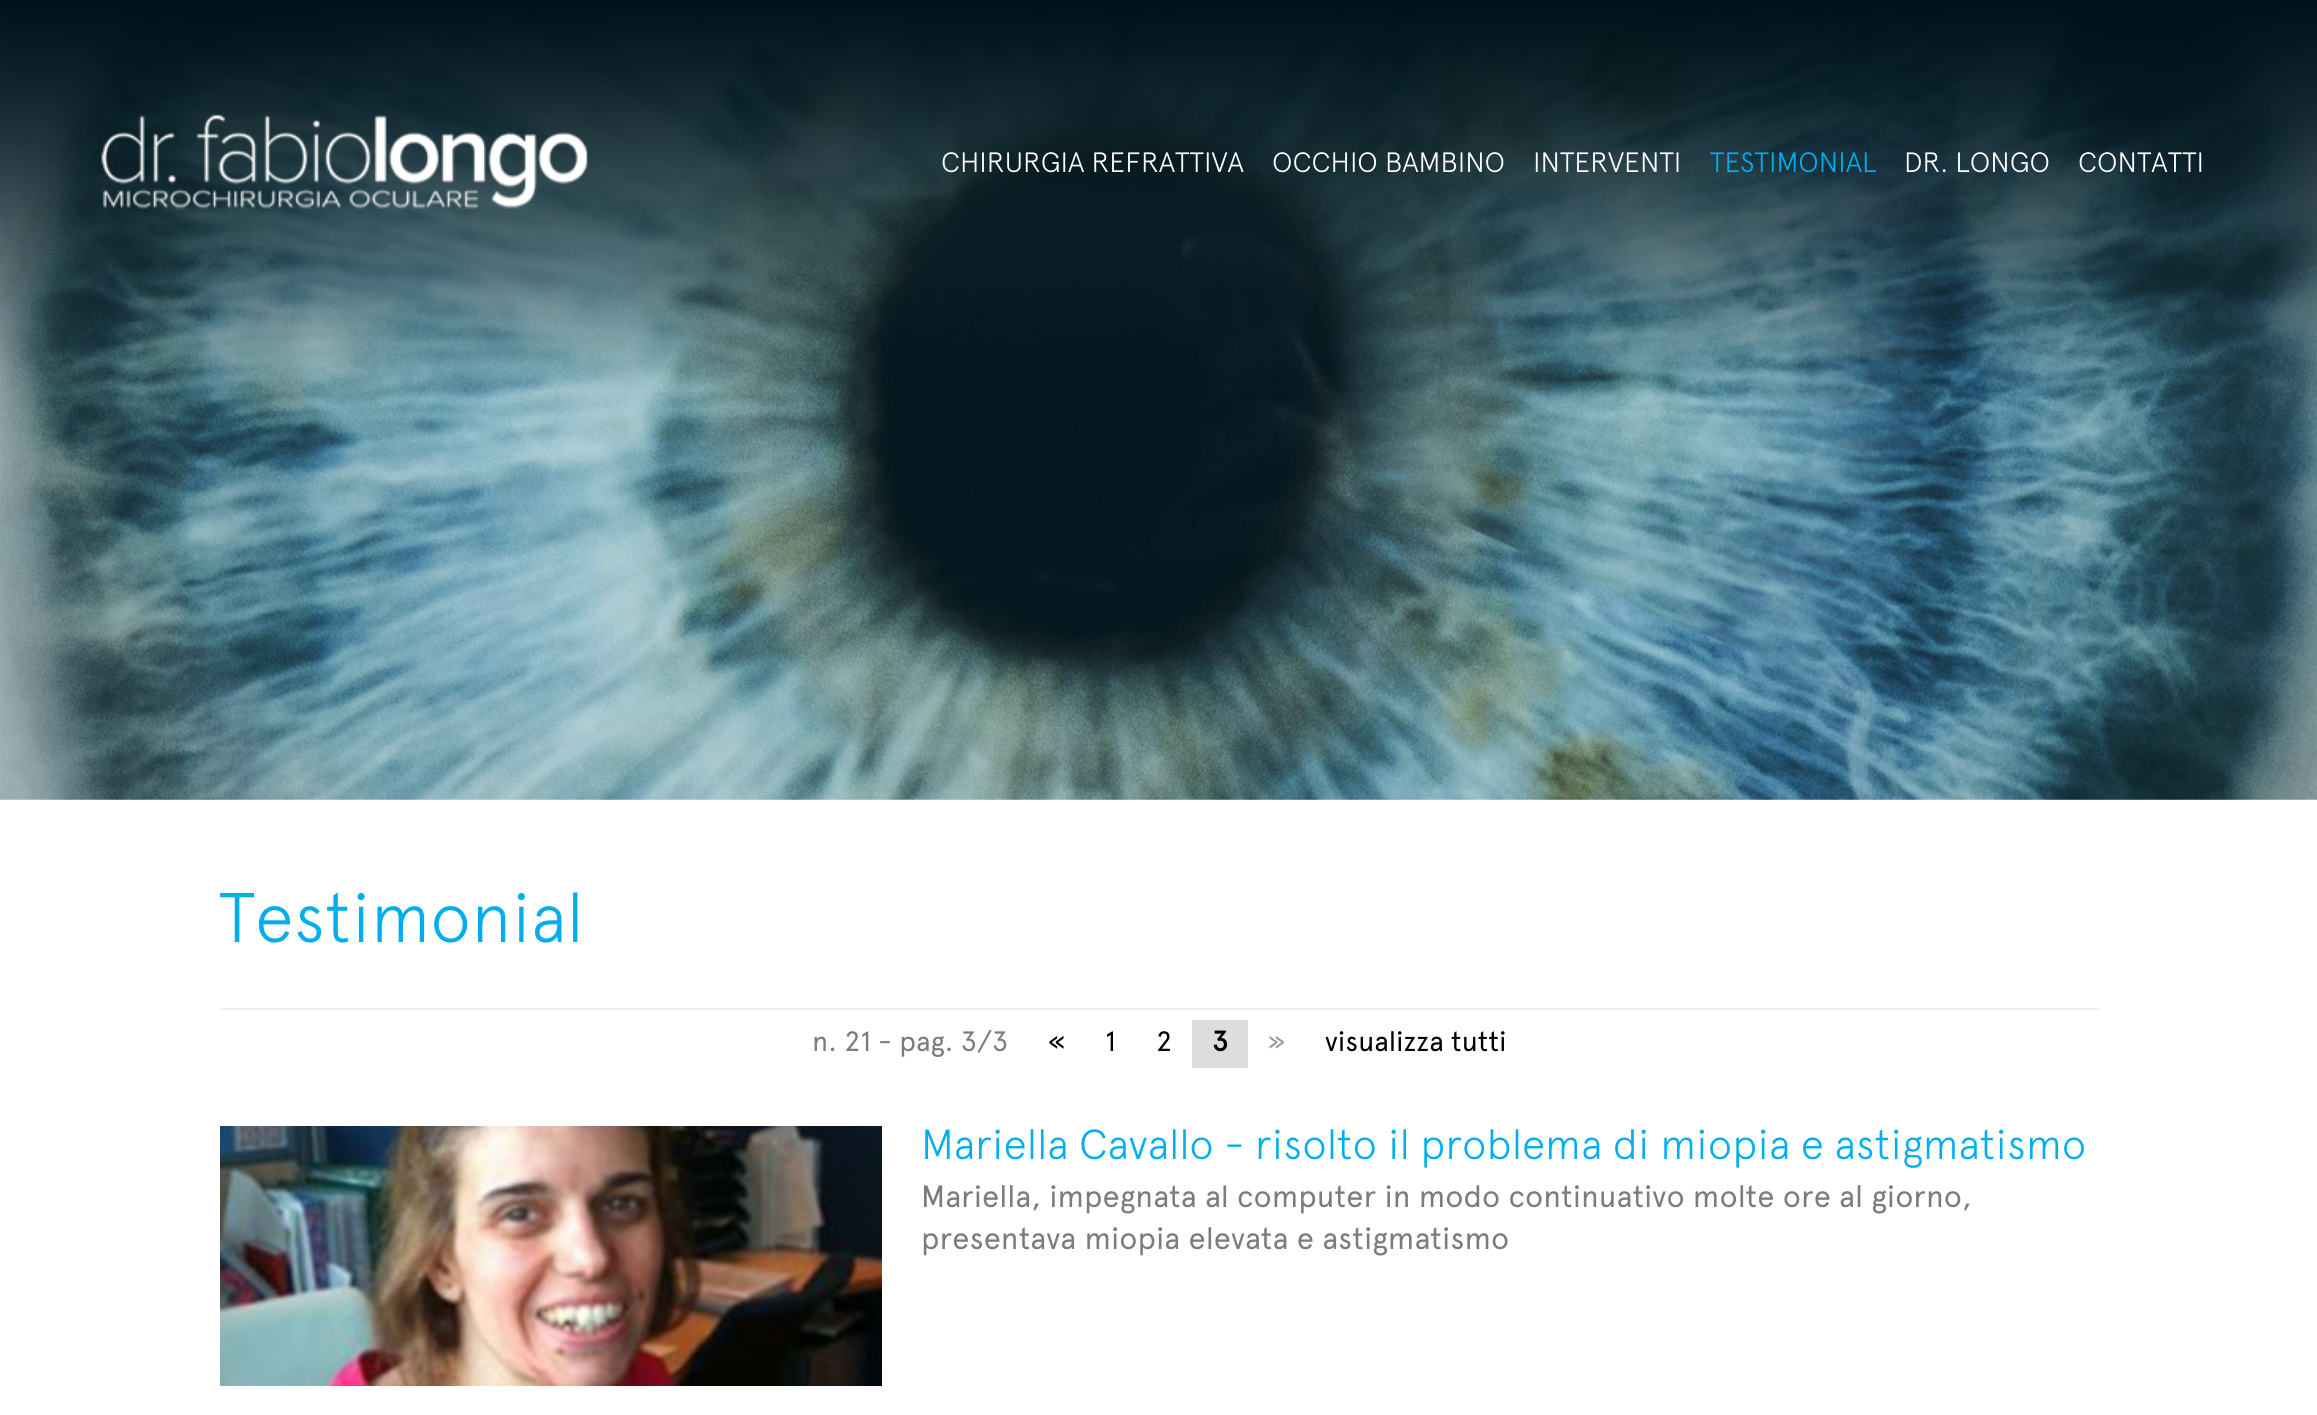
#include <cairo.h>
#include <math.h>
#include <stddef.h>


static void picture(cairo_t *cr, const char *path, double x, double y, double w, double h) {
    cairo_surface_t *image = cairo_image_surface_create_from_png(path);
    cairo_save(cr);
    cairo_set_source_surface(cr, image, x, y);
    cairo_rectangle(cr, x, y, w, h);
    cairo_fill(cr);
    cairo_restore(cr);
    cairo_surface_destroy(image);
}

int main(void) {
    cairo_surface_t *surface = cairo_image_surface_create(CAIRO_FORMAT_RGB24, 2317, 1415);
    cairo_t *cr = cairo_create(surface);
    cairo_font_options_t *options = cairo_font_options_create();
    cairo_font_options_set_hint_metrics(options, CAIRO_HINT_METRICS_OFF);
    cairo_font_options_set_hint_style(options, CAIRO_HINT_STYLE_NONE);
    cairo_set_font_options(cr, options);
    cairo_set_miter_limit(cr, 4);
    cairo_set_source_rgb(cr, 1, 1, 1);
    cairo_paint(cr);
    picture(cr, "img1.png", 0, 0, 2317, 800);
    picture(cr, "img2.png", 101, 114, 487, 95);
    cairo_select_font_face(cr, "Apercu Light", CAIRO_FONT_SLANT_NORMAL, CAIRO_FONT_WEIGHT_NORMAL);
    cairo_set_font_size(cr, 28);
    cairo_set_source_rgb(cr, 1, 1, 1);
    cairo_move_to(cr, 941, 172);
    cairo_show_text(cr, "CHIRURGIA REFRATTIVA");
    cairo_move_to(cr, 1272, 172);
    cairo_show_text(cr, "OCCHIO BAMBINO");
    cairo_move_to(cr, 1533, 172);
    cairo_show_text(cr, "INTERVENTI");
    cairo_set_source_rgb(cr, 0, 0.682, 0.937);
    cairo_move_to(cr, 1710, 172);
    cairo_show_text(cr, "TESTIMONIAL");
    cairo_set_source_rgb(cr, 1, 1, 1);
    cairo_move_to(cr, 1904, 172);
    cairo_show_text(cr, "DR. LONGO");
    cairo_move_to(cr, 2078, 172);
    cairo_show_text(cr, "CONTATTI");
    cairo_set_font_size(cr, 70);
    cairo_set_source_rgb(cr, 0, 0.682, 0.937);
    cairo_move_to(cr, 219, 942);
    cairo_show_text(cr, "Testimonial");
    cairo_set_source_rgb(cr, 0.933, 0.933, 0.933);
    cairo_rectangle(cr, 220, 1008, 1880, 2);
    cairo_fill(cr);
    cairo_select_font_face(cr, "Apercu", CAIRO_FONT_SLANT_NORMAL, CAIRO_FONT_WEIGHT_NORMAL);
    cairo_set_font_size(cr, 28);
    cairo_set_source_rgb(cr, 0.486, 0.486, 0.482);
    cairo_move_to(cr, 812, 1051);
    cairo_show_text(cr, "n. 21 - pag. 3/3");
    cairo_set_source_rgb(cr, 0, 0, 0);
    cairo_move_to(cr, 1048, 1051);
    cairo_show_text(cr, "«");
    cairo_move_to(cr, 1105, 1051);
    cairo_show_text(cr, "1");
    cairo_move_to(cr, 1156, 1051);
    cairo_show_text(cr, "2");
    cairo_set_source_rgb(cr, 0.867, 0.867, 0.867);
    cairo_rectangle(cr, 1192, 1020, 56, 48);
    cairo_fill(cr);
    cairo_select_font_face(cr, "Apercu", CAIRO_FONT_SLANT_NORMAL, CAIRO_FONT_WEIGHT_BOLD);
    cairo_set_source_rgb(cr, 0, 0, 0);
    cairo_move_to(cr, 1212, 1051);
    cairo_show_text(cr, "3");
    cairo_select_font_face(cr, "Apercu", CAIRO_FONT_SLANT_NORMAL, CAIRO_FONT_WEIGHT_NORMAL);
    cairo_set_source_rgb(cr, 0.6, 0.6, 0.6);
    cairo_move_to(cr, 1268, 1051);
    cairo_show_text(cr, "»");
    cairo_set_source_rgb(cr, 0, 0, 0);
    cairo_move_to(cr, 1325, 1051);
    cairo_show_text(cr, "visualizza tutti");
    picture(cr, "img3.png", 220, 1126, 662, 260);
    cairo_select_font_face(cr, "Apercu Light", CAIRO_FONT_SLANT_NORMAL, CAIRO_FONT_WEIGHT_NORMAL);
    cairo_set_font_size(cr, 42);
    cairo_set_source_rgb(cr, 0, 0.682, 0.937);
    cairo_move_to(cr, 921, 1159);
    cairo_show_text(cr, "Mariella Cavallo - risolto il problema di miopia e astigmatismo");
    cairo_select_font_face(cr, "Apercu", CAIRO_FONT_SLANT_NORMAL, CAIRO_FONT_WEIGHT_NORMAL);
    cairo_set_font_size(cr, 30.8);
    cairo_set_source_rgb(cr, 0.486, 0.486, 0.482);
    cairo_move_to(cr, 921, 1207);
    cairo_show_text(cr, "Mariella, impegnata al computer in modo continuativo molte ore al giorno,");
    cairo_move_to(cr, 921, 1249);
    cairo_show_text(cr, "presentava miopia elevata e astigmatismo");
    cairo_surface_write_to_png(surface, "page.png");
    cairo_font_options_destroy(options);
    cairo_destroy(cr);
    cairo_surface_destroy(surface);
    return 0;
}
